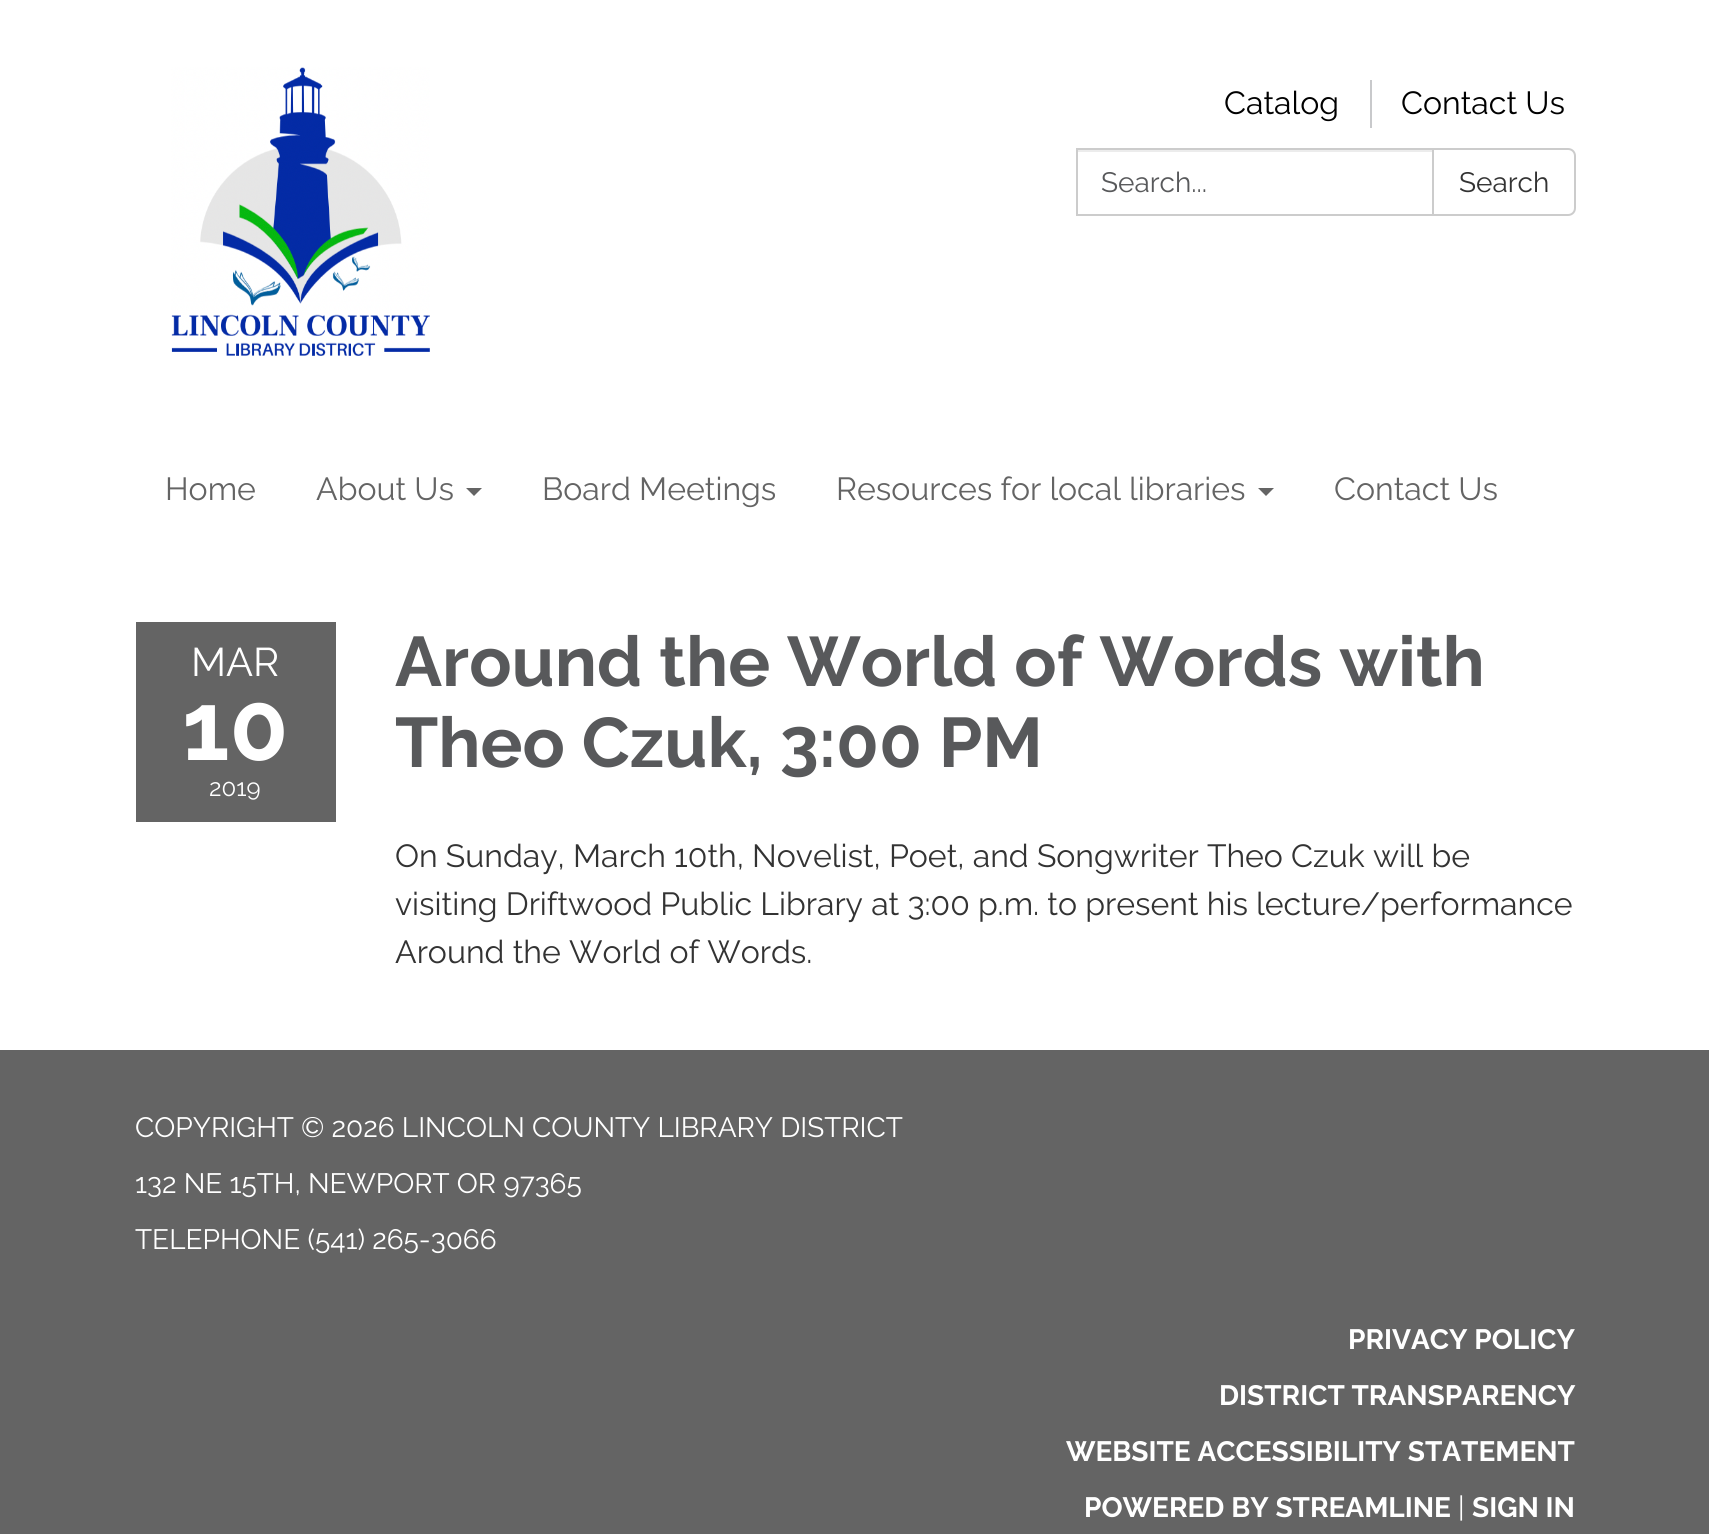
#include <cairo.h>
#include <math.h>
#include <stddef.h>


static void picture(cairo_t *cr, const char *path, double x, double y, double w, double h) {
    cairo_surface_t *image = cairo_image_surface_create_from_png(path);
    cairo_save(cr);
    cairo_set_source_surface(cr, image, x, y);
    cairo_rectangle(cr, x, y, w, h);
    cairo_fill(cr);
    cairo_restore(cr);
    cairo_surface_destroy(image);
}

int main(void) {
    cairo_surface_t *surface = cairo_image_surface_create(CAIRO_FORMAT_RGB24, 1709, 1534);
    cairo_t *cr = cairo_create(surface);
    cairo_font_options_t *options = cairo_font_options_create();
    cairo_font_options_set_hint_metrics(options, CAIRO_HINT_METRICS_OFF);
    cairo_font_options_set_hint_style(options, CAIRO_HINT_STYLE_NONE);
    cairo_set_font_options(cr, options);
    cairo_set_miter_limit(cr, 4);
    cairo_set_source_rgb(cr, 0.392, 0.392, 0.392);
    cairo_paint(cr);
    cairo_set_source_rgb(cr, 1, 1, 1);
    cairo_rectangle(cr, 0, 0, 1709, 440);
    cairo_fill(cr);
    picture(cr, "img1.png", 171, 67, 259, 289);
    cairo_select_font_face(cr, "Raleway", CAIRO_FONT_SLANT_NORMAL, CAIRO_FONT_WEIGHT_NORMAL);
    cairo_set_font_size(cr, 32);
    cairo_set_source_rgb(cr, 0, 0, 0);
    cairo_move_to(cr, 1224, 114);
    cairo_show_text(cr, "Catalog");
    cairo_set_source_rgb(cr, 0.784, 0.788, 0.796);
    cairo_rectangle(cr, 1370, 80, 2, 48);
    cairo_fill(cr);
    cairo_set_source_rgb(cr, 0, 0, 0);
    cairo_move_to(cr, 1401, 114);
    cairo_show_text(cr, "Contact Us");
    cairo_set_source_rgb(cr, 0.925, 0.925, 0.925);
    cairo_rectangle(cr, 1078, 150, 354, 2);
    cairo_fill(cr);
    cairo_rectangle(cr, 1077, 149, 356, 66);
    cairo_set_source_rgb(cr, 0.8, 0.8, 0.8);
    cairo_stroke(cr);
    cairo_set_font_size(cr, 28);
    cairo_set_source_rgb(cr, 0.345, 0.349, 0.357);
    cairo_move_to(cr, 1101, 192);
    cairo_show_text(cr, "Search...");
    cairo_set_source_rgb(cr, 1, 1, 1);
    cairo_new_path(cr);
    cairo_move_to(cr, 1433, 149);
    cairo_line_to(cr, 1568, 149);
    cairo_curve_to(cr, 1572, 149, 1575, 152, 1575, 156);
    cairo_line_to(cr, 1575, 208);
    cairo_curve_to(cr, 1575, 212, 1572, 215, 1568, 215);
    cairo_line_to(cr, 1433, 215);
    cairo_close_path(cr);
    cairo_fill_preserve(cr);
    cairo_set_source_rgb(cr, 0.8, 0.8, 0.8);
    cairo_stroke(cr);
    cairo_set_source_rgb(cr, 0.2, 0.2, 0.2);
    cairo_move_to(cr, 1459, 192);
    cairo_show_text(cr, "Search");
    cairo_set_source_rgb(cr, 1, 1, 1);
    cairo_rectangle(cr, 0, 440, 1709, 610);
    cairo_fill(cr);
    cairo_set_font_size(cr, 32);
    cairo_set_source_rgb(cr, 0.392, 0.392, 0.392);
    cairo_move_to(cr, 165, 500);
    cairo_show_text(cr, "Home");
    cairo_move_to(cr, 316, 500);
    cairo_show_text(cr, "About Us");
    cairo_new_path(cr);
    cairo_move_to(cr, 466, 488);
    cairo_line_to(cr, 482, 488);
    cairo_line_to(cr, 474, 496);
    cairo_close_path(cr);
    cairo_fill(cr);
    cairo_move_to(cr, 542, 500);
    cairo_show_text(cr, "Board Meetings");
    cairo_move_to(cr, 836, 500);
    cairo_show_text(cr, "Resources for local libraries");
    cairo_new_path(cr);
    cairo_move_to(cr, 1258, 488);
    cairo_line_to(cr, 1274, 488);
    cairo_line_to(cr, 1266, 496);
    cairo_close_path(cr);
    cairo_fill(cr);
    cairo_move_to(cr, 1334, 500);
    cairo_show_text(cr, "Contact Us");
    cairo_rectangle(cr, 136, 622, 200, 200);
    cairo_fill(cr);
    cairo_set_font_size(cr, 40);
    cairo_set_source_rgb(cr, 1, 1, 1);
    cairo_move_to(cr, 191, 676);
    cairo_show_text(cr, "MAR");
    cairo_select_font_face(cr, "Raleway", CAIRO_FONT_SLANT_NORMAL, CAIRO_FONT_WEIGHT_BOLD);
    cairo_set_font_size(cr, 96);
    cairo_move_to(cr, 182, 760);
    cairo_show_text(cr, "10");
    cairo_select_font_face(cr, "Raleway", CAIRO_FONT_SLANT_NORMAL, CAIRO_FONT_WEIGHT_NORMAL);
    cairo_set_font_size(cr, 24);
    cairo_move_to(cr, 209, 796);
    cairo_show_text(cr, "2019");
    cairo_select_font_face(cr, "Raleway", CAIRO_FONT_SLANT_NORMAL, CAIRO_FONT_WEIGHT_BOLD);
    cairo_set_font_size(cr, 70);
    cairo_set_source_rgb(cr, 0.345, 0.349, 0.357);
    cairo_move_to(cr, 395, 686);
    cairo_show_text(cr, "Around the World of Words with");
    cairo_move_to(cr, 395, 767);
    cairo_show_text(cr, "Theo Czuk, 3:00 PM");
    cairo_select_font_face(cr, "Raleway", CAIRO_FONT_SLANT_NORMAL, CAIRO_FONT_WEIGHT_NORMAL);
    cairo_set_font_size(cr, 32);
    cairo_set_source_rgb(cr, 0.2, 0.2, 0.2);
    cairo_move_to(cr, 395, 867);
    cairo_show_text(cr, "On Sunday, March 10th, Novelist, Poet, and Songwriter Theo Czuk will be");
    cairo_move_to(cr, 395, 915);
    cairo_show_text(cr, "visiting Driftwood Public Library at 3:00 p.m. to present his lecture/performance");
    cairo_move_to(cr, 395, 963);
    cairo_show_text(cr, "Around the World of Words.");
    cairo_set_font_size(cr, 28);
    cairo_set_source_rgb(cr, 1, 1, 1);
    cairo_move_to(cr, 135, 1137);
    cairo_show_text(cr, "COPYRIGHT © 2026 LINCOLN COUNTY LIBRARY DISTRICT");
    cairo_move_to(cr, 135, 1193);
    cairo_show_text(cr, "132 NE 15TH, NEWPORT OR 97365");
    cairo_move_to(cr, 135, 1249);
    cairo_show_text(cr, "TELEPHONE (541) 265-3066");
    cairo_select_font_face(cr, "Raleway", CAIRO_FONT_SLANT_NORMAL, CAIRO_FONT_WEIGHT_BOLD);
    cairo_move_to(cr, 1348, 1349);
    cairo_show_text(cr, "PRIVACY POLICY");
    cairo_move_to(cr, 1219, 1405);
    cairo_show_text(cr, "DISTRICT TRANSPARENCY");
    cairo_move_to(cr, 1066, 1461);
    cairo_show_text(cr, "WEBSITE ACCESSIBILITY STATEMENT");
    cairo_move_to(cr, 1084, 1517);
    cairo_show_text(cr, "POWERED BY STREAMLINE");
    cairo_select_font_face(cr, "Raleway", CAIRO_FONT_SLANT_NORMAL, CAIRO_FONT_WEIGHT_NORMAL);
    cairo_move_to(cr, 1458, 1517);
    cairo_show_text(cr, "|");
    cairo_select_font_face(cr, "Raleway", CAIRO_FONT_SLANT_NORMAL, CAIRO_FONT_WEIGHT_BOLD);
    cairo_move_to(cr, 1472, 1517);
    cairo_show_text(cr, "SIGN IN");
    cairo_surface_write_to_png(surface, "page.png");
    cairo_font_options_destroy(options);
    cairo_destroy(cr);
    cairo_surface_destroy(surface);
    return 0;
}
